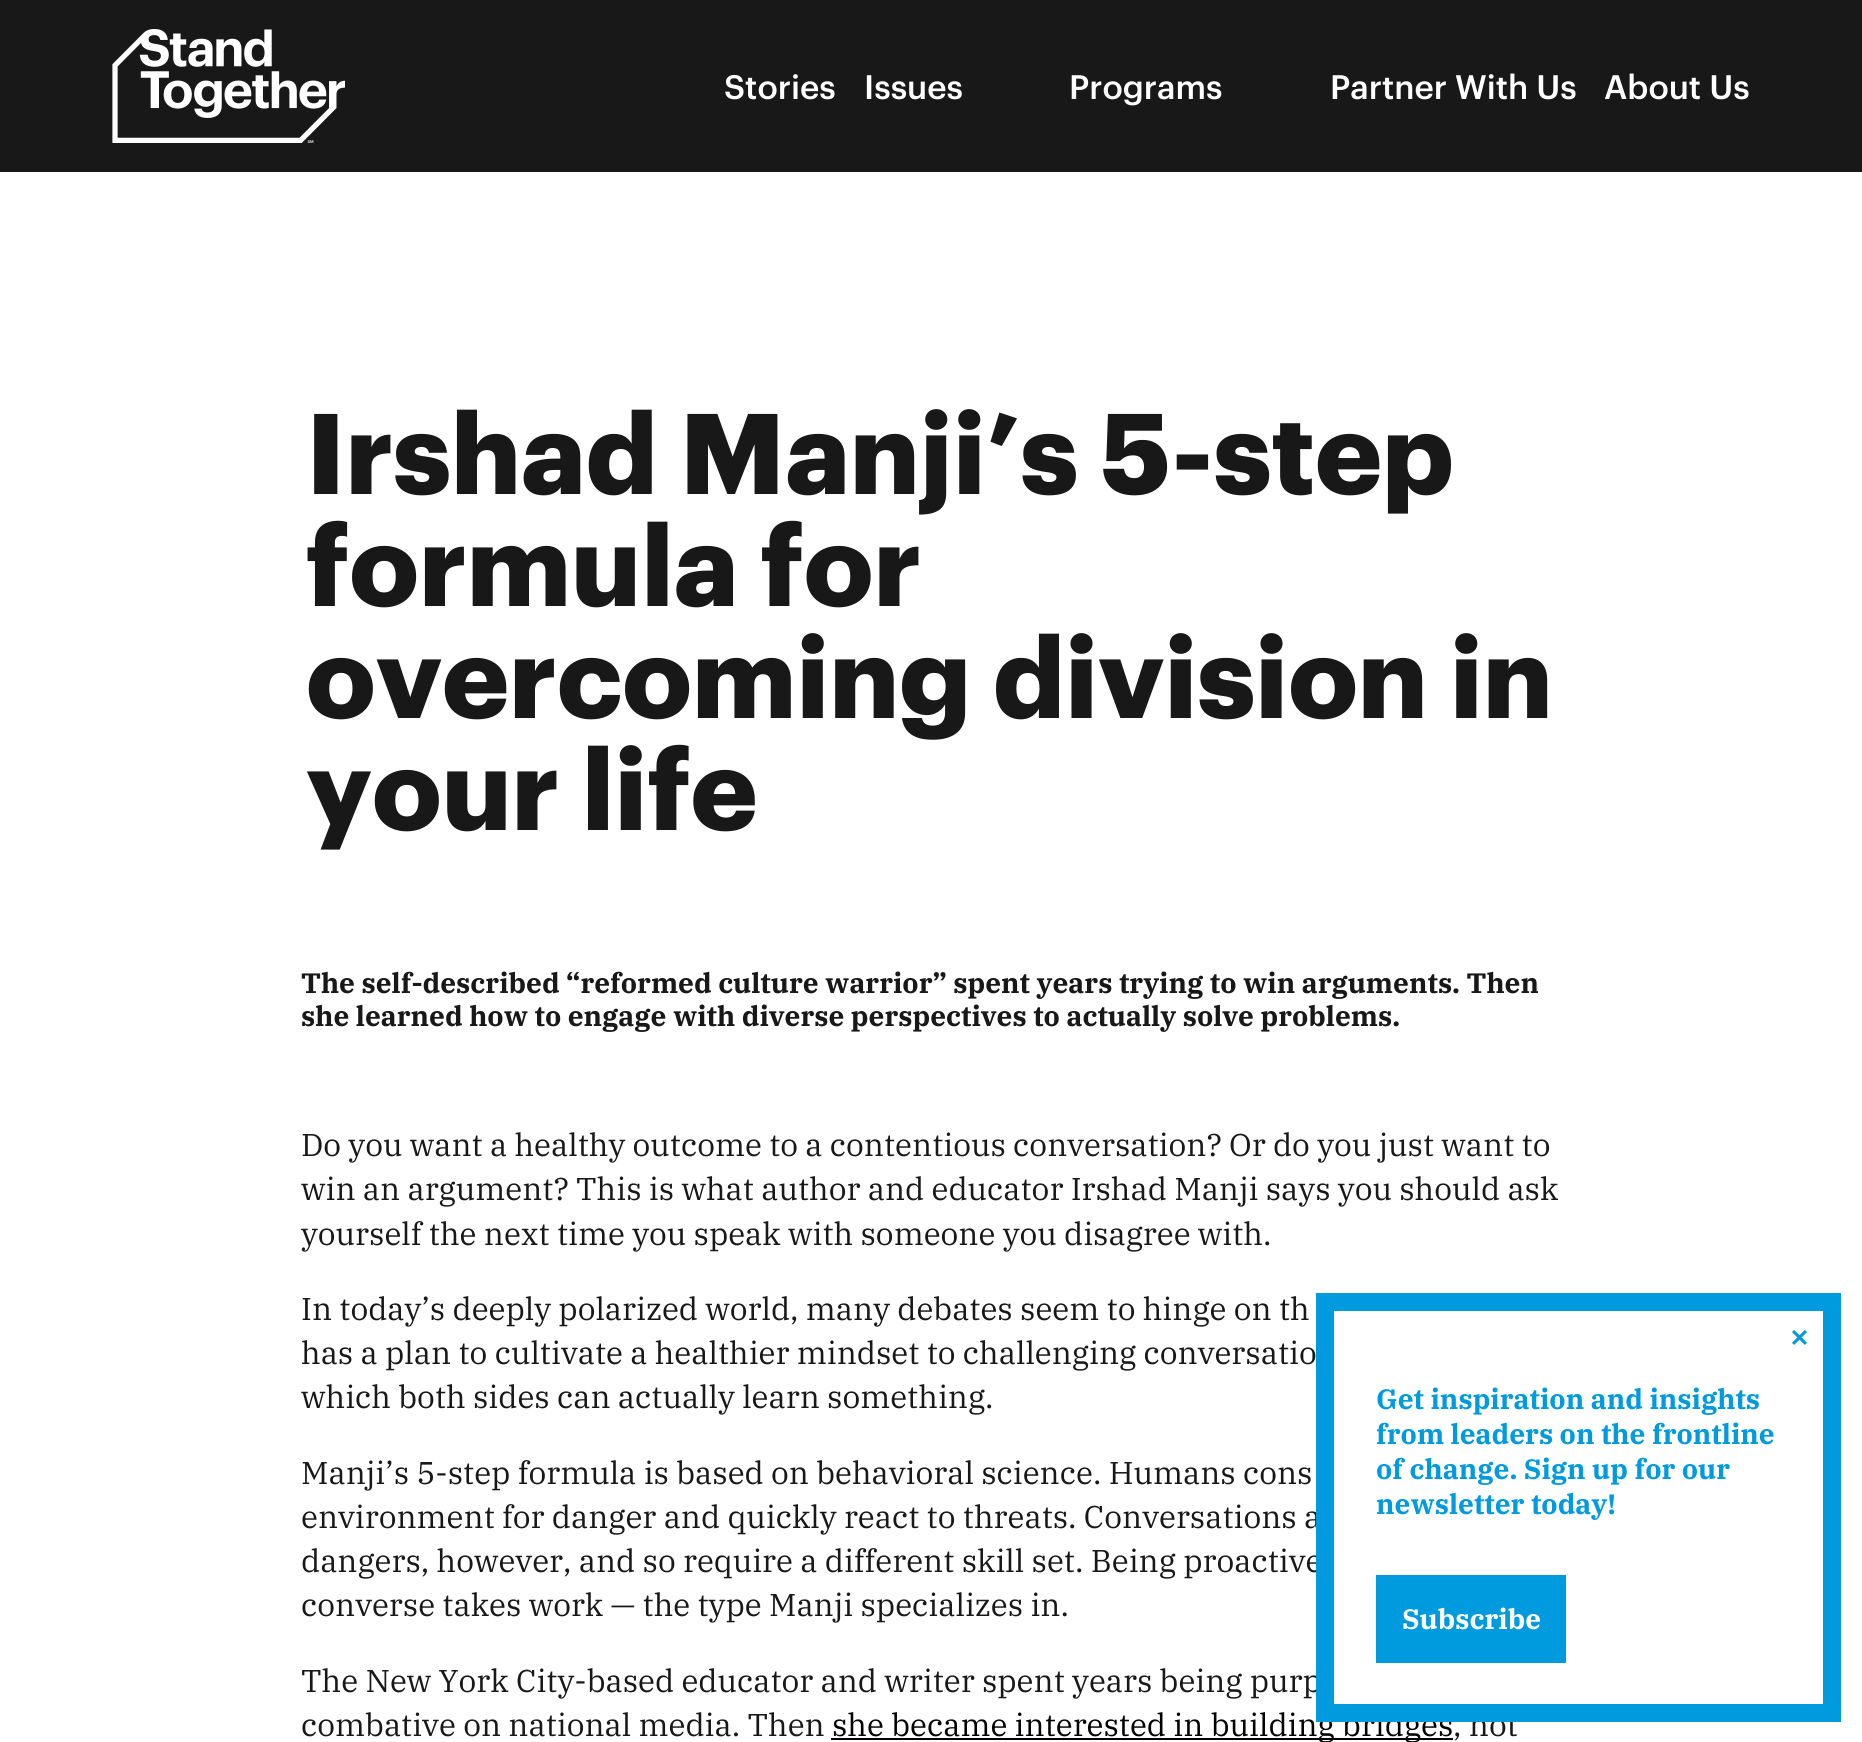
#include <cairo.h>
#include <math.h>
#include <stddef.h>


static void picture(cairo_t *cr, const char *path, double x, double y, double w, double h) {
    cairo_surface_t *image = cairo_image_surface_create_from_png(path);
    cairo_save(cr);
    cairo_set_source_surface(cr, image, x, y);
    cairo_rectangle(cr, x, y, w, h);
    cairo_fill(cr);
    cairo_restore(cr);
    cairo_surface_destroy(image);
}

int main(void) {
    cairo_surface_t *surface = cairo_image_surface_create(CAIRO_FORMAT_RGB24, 1862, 1742);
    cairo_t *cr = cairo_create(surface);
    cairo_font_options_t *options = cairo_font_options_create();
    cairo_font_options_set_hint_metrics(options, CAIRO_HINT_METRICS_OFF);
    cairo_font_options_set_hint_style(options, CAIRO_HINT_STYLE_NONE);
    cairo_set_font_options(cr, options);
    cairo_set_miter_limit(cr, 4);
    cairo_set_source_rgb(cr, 1, 1, 1);
    cairo_paint(cr);
    cairo_set_source_rgb(cr, 0.094, 0.094, 0.094);
    cairo_rectangle(cr, 0, 0, 1862, 172);
    cairo_fill(cr);
    picture(cr, "img1.png", 112, 29, 233, 115);
    cairo_select_font_face(cr, "Graphik Medium", CAIRO_FONT_SLANT_NORMAL, CAIRO_FONT_WEIGHT_NORMAL);
    cairo_set_font_size(cr, 33.25);
    cairo_set_source_rgb(cr, 1, 1, 1);
    cairo_move_to(cr, 724, 99);
    cairo_show_text(cr, "Stories");
    cairo_move_to(cr, 864, 99);
    cairo_show_text(cr, "Issues");
    cairo_move_to(cr, 1069, 99);
    cairo_show_text(cr, "Programs");
    cairo_move_to(cr, 1330, 99);
    cairo_show_text(cr, "Partner With Us");
    cairo_move_to(cr, 1604, 99);
    cairo_show_text(cr, "About Us");
    cairo_select_font_face(cr, "Graphik", CAIRO_FONT_SLANT_NORMAL, CAIRO_FONT_WEIGHT_BOLD);
    cairo_set_font_size(cr, 112);
    cairo_set_source_rgb(cr, 0.094, 0.094, 0.094);
    cairo_move_to(cr, 306, 494);
    cairo_show_text(cr, "Irshad Manji’s 5-step");
    cairo_move_to(cr, 306, 606);
    cairo_show_text(cr, "formula for");
    cairo_move_to(cr, 306, 718);
    cairo_show_text(cr, "overcoming division in");
    cairo_move_to(cr, 306, 830);
    cairo_show_text(cr, "your life");
    cairo_select_font_face(cr, "IBM Plex Serif", CAIRO_FONT_SLANT_NORMAL, CAIRO_FONT_WEIGHT_BOLD);
    cairo_set_font_size(cr, 28);
    cairo_move_to(cr, 301, 993);
    cairo_show_text(cr, "The self-described “reformed culture warrior” spent years trying to win arguments. Then");
    cairo_move_to(cr, 301, 1026);
    cairo_show_text(cr, "she learned how to engage with diverse perspectives to actually solve problems.");
    cairo_select_font_face(cr, "IBM Plex Serif", CAIRO_FONT_SLANT_NORMAL, CAIRO_FONT_WEIGHT_NORMAL);
    cairo_set_font_size(cr, 31.5);
    cairo_move_to(cr, 301, 1156);
    cairo_show_text(cr, "Do you want a healthy outcome to a contentious conversation? Or do you just want to");
    cairo_move_to(cr, 301, 1200);
    cairo_show_text(cr, "win an argument? This is what author and educator Irshad Manji says you should ask");
    cairo_move_to(cr, 301, 1245);
    cairo_show_text(cr, "yourself the next time you speak with someone you disagree with.");
    cairo_move_to(cr, 301, 1320);
    cairo_show_text(cr, "In today’s deeply polarized world, many debates seem to hinge on th");
    cairo_move_to(cr, 301, 1364);
    cairo_show_text(cr, "has a plan to cultivate a healthier mindset to challenging conversatio");
    cairo_move_to(cr, 301, 1408);
    cairo_show_text(cr, "which both sides can actually learn something.");
    cairo_move_to(cr, 301, 1484);
    cairo_show_text(cr, "Manji’s 5-step formula is based on behavioral science. Humans cons");
    cairo_move_to(cr, 301, 1528);
    cairo_show_text(cr, "environment for danger and quickly react to threats. Conversations a");
    cairo_move_to(cr, 301, 1572);
    cairo_show_text(cr, "dangers, however, and so require a different skill set. Being proactive");
    cairo_move_to(cr, 301, 1616);
    cairo_show_text(cr, "converse takes work — the type Manji specializes in.");
    cairo_move_to(cr, 301, 1692);
    cairo_show_text(cr, "The New York City-based educator and writer spent years being purp");
    cairo_move_to(cr, 301, 1736);
    cairo_show_text(cr, "combative on national media. Then");
    cairo_set_source_rgb(cr, 0, 0, 0);
    cairo_rectangle(cr, 831, 1738, 622, 2);
    cairo_fill(cr);
    cairo_move_to(cr, 832, 1736);
    cairo_show_text(cr, "she became interested in building bridges");
    cairo_set_source_rgb(cr, 0.094, 0.094, 0.094);
    cairo_move_to(cr, 1453, 1736);
    cairo_show_text(cr, ", not");
    cairo_rectangle(cr, 1325, 1302, 507, 411);
    cairo_set_source_rgb(cr, 0, 0.604, 0.871);
    cairo_set_line_width(cr, 18);
    cairo_stroke(cr);
    cairo_select_font_face(cr, "IBM Plex Serif", CAIRO_FONT_SLANT_NORMAL, CAIRO_FONT_WEIGHT_BOLD);
    cairo_set_font_size(cr, 35);
    cairo_move_to(cr, 1789, 1348);
    cairo_show_text(cr, "×");
    cairo_set_font_size(cr, 28);
    cairo_move_to(cr, 1376, 1409);
    cairo_show_text(cr, "Get inspiration and insights");
    cairo_move_to(cr, 1376, 1444);
    cairo_show_text(cr, "from leaders on the frontline");
    cairo_move_to(cr, 1376, 1479);
    cairo_show_text(cr, "of change. Sign up for our");
    cairo_move_to(cr, 1376, 1514);
    cairo_show_text(cr, "newsletter today!");
    cairo_rectangle(cr, 1376, 1575, 190, 88);
    cairo_fill(cr);
    cairo_set_source_rgb(cr, 1, 1, 1);
    cairo_move_to(cr, 1402, 1629);
    cairo_show_text(cr, "Subscribe");
    cairo_surface_write_to_png(surface, "page.png");
    cairo_font_options_destroy(options);
    cairo_destroy(cr);
    cairo_surface_destroy(surface);
    return 0;
}
